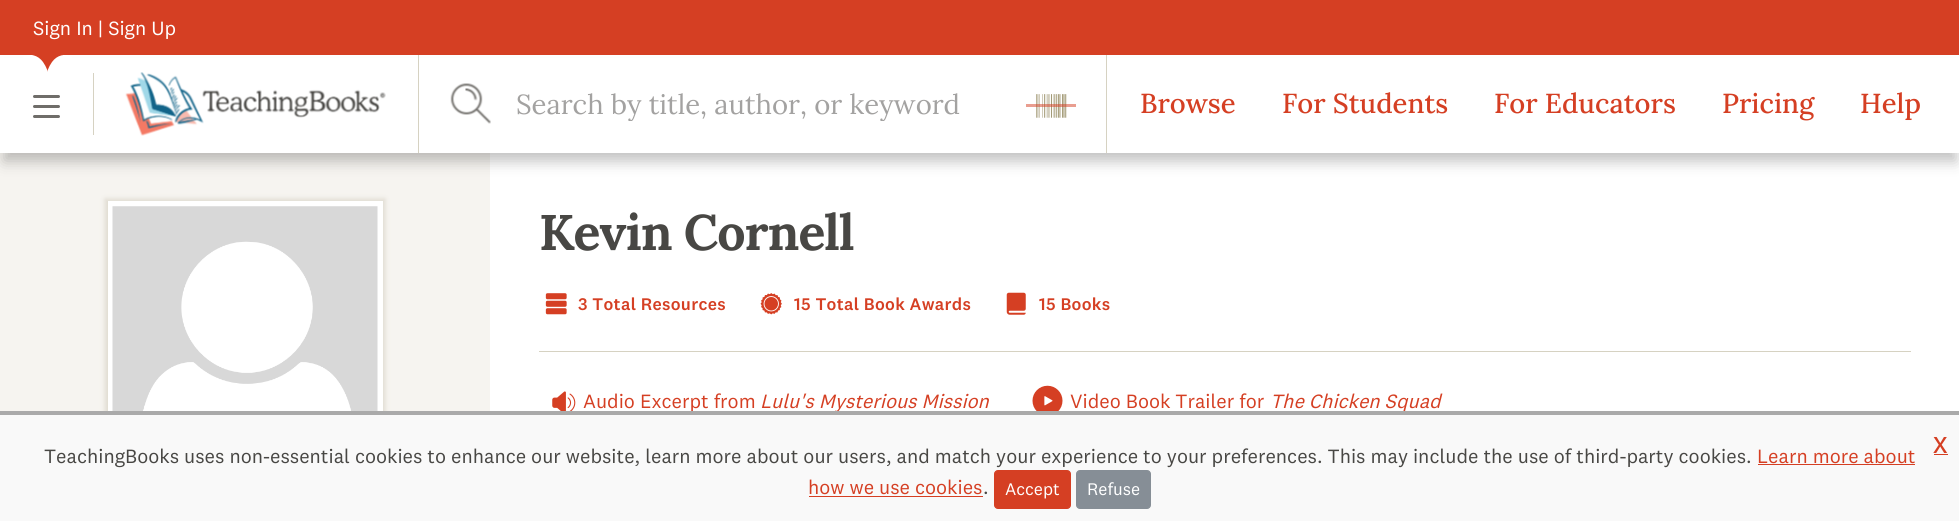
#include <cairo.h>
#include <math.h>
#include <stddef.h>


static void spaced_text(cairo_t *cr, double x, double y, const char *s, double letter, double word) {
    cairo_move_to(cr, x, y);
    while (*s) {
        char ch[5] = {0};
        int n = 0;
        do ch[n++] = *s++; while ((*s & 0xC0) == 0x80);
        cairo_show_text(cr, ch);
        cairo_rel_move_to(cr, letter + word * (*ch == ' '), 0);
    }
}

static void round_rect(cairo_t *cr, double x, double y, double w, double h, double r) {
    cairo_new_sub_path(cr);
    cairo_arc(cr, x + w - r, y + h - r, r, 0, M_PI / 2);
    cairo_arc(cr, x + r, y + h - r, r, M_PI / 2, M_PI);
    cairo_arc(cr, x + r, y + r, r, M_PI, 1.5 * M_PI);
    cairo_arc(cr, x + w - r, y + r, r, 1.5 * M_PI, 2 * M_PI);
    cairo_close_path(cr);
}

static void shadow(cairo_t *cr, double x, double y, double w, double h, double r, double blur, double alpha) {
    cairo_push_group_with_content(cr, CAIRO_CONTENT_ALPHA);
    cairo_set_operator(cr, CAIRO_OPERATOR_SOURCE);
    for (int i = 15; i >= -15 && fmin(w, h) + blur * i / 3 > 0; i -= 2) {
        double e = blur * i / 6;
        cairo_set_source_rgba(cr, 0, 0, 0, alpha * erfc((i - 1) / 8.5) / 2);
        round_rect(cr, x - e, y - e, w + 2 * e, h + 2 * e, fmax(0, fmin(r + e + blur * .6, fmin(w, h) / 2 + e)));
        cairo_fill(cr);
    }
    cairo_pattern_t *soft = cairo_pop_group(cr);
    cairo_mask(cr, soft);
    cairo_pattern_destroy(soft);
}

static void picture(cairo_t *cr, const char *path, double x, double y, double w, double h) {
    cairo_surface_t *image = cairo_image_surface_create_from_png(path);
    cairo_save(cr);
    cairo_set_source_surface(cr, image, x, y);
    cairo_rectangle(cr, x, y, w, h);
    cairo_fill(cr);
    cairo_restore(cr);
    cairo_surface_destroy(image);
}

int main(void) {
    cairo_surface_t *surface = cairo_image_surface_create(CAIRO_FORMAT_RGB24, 1959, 521);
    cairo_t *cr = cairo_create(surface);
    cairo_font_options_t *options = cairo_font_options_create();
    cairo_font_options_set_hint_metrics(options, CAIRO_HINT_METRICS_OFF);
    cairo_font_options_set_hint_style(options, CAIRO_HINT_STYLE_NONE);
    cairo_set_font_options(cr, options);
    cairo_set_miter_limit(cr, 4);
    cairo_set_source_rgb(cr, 1, 1, 1);
    cairo_paint(cr);
    cairo_set_source_rgb(cr, 0.961, 0.957, 0.941);
    cairo_rectangle(cr, 0, 153, 490, 258);
    cairo_fill(cr);
    cairo_set_source_rgb(cr, 0, 0, 0);
    shadow(cr, 4, 71, 1952, 90, 0, 7.5, 0.25);
    cairo_set_source_rgb(cr, 1, 1, 1);
    cairo_rectangle(cr, 0, 58, 1959, 95);
    cairo_fill(cr);
    cairo_set_source_rgb(cr, 0.835, 0.247, 0.137);
    cairo_new_path(cr);
    cairo_move_to(cr, 16, 36);
    cairo_line_to(cr, 79, 36);
    cairo_line_to(cr, 48, 74);
    cairo_close_path(cr);
    cairo_fill(cr);
    cairo_rectangle(cr, 0, 0, 1959, 55);
    cairo_fill(cr);
    cairo_select_font_face(cr, "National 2", CAIRO_FONT_SLANT_NORMAL, CAIRO_FONT_WEIGHT_NORMAL);
    cairo_set_font_size(cr, 20);
    cairo_set_source_rgb(cr, 1, 1, 1);
    cairo_move_to(cr, 33, 35);
    cairo_show_text(cr, "Sign In | Sign Up");
    cairo_new_path(cr);
    cairo_move_to(cr, 50, 88);
    cairo_curve_to(cr, 44, 83.5, 45, 72, 52, 62);
    cairo_curve_to(cr, 57, 55, 65.5, 53, 71.5, 57);
    cairo_curve_to(cr, 77.5, 61.5, 78.5, 70, 73.5, 77);
    cairo_curve_to(cr, 66.5, 87, 56, 92, 50, 88);
    cairo_close_path(cr);
    cairo_fill(cr);
    cairo_new_path(cr);
    cairo_move_to(cr, 45, 88);
    cairo_curve_to(cr, 39, 92, 28.5, 87, 21.5, 77);
    cairo_curve_to(cr, 16.5, 70, 17.5, 61.5, 23.5, 57);
    cairo_curve_to(cr, 29.5, 53, 38, 55, 43, 62);
    cairo_curve_to(cr, 50, 72, 51, 83.5, 45, 88);
    cairo_close_path(cr);
    cairo_fill(cr);
    cairo_set_source_rgb(cr, 0.435, 0.427, 0.412);
    round_rect(cr, 33, 95, 27, 3, 1.5);
    cairo_fill(cr);
    round_rect(cr, 33, 105, 27, 3, 1.5);
    cairo_fill(cr);
    round_rect(cr, 33, 115, 27, 3, 1.5);
    cairo_fill(cr);
    cairo_set_source_rgb(cr, 0.839, 0.824, 0.761);
    cairo_rectangle(cr, 93, 73, 1, 62);
    cairo_fill(cr);
    picture(cr, "img1.png", 125, 72, 261, 64);
    cairo_rectangle(cr, 1106, 55, 1, 98);
    cairo_fill(cr);
    cairo_rectangle(cr, 418, 55, 1, 98);
    cairo_fill(cr);
    picture(cr, "img2.png", 450, 83, 41, 41);
    cairo_save(cr);
    cairo_rectangle(cr, 516, 86, 515, 35);
    cairo_clip(cr);
    cairo_select_font_face(cr, "Lora", CAIRO_FONT_SLANT_NORMAL, CAIRO_FONT_WEIGHT_NORMAL);
    cairo_set_font_size(cr, 27.5);
    cairo_set_source_rgb(cr, 0.639, 0.635, 0.631);
    cairo_move_to(cr, 516, 114);
    cairo_show_text(cr, "Search by title, author, or keyword");
    cairo_restore(cr);
    picture(cr, "img3.png", 1036, 94, 31, 24);
    cairo_set_source_rgba(cr, 0.835, 0.247, 0.137, 0.5);
    cairo_rectangle(cr, 1026, 104, 50, 3);
    cairo_fill(cr);
    cairo_select_font_face(cr, "Lora Medium", CAIRO_FONT_SLANT_NORMAL, CAIRO_FONT_WEIGHT_NORMAL);
    cairo_set_font_size(cr, 27.5);
    cairo_set_source_rgb(cr, 0.835, 0.247, 0.137);
    cairo_move_to(cr, 1140, 113);
    cairo_show_text(cr, "Browse");
    cairo_move_to(cr, 1282, 113);
    cairo_show_text(cr, "For Students");
    cairo_move_to(cr, 1494, 113);
    cairo_show_text(cr, "For Educators");
    cairo_move_to(cr, 1722, 113);
    cairo_show_text(cr, "Pricing");
    cairo_move_to(cr, 1860, 113);
    cairo_show_text(cr, "Help");
    cairo_set_source_rgb(cr, 0.784, 0.753, 0.694);
    shadow(cr, 105, 199, 280, 280, 0, 2.5, 0.5);
    cairo_set_source_rgb(cr, 1, 1, 1);
    cairo_rectangle(cr, 108, 201, 275, 210);
    cairo_fill(cr);
    picture(cr, "img4.png", 112, 206, 266, 205);
    cairo_select_font_face(cr, "Lora", CAIRO_FONT_SLANT_NORMAL, CAIRO_FONT_WEIGHT_BOLD);
    cairo_set_font_size(cr, 50);
    cairo_set_source_rgb(cr, 0.282, 0.278, 0.267);
    spaced_text(cr, 539, 250, "Kevin Cornell", -1, 0);
    picture(cr, "img5.png", 545, 293, 22, 22);
    cairo_select_font_face(cr, "National 2 Medium", CAIRO_FONT_SLANT_NORMAL, CAIRO_FONT_WEIGHT_NORMAL);
    cairo_set_font_size(cr, 17.5);
    cairo_set_source_rgb(cr, 0.835, 0.247, 0.137);
    spaced_text(cr, 578, 310, "3 Total Resources", 0.3, 0);
    picture(cr, "img6.png", 760, 293, 22, 22);
    spaced_text(cr, 794, 310, "15 Total Book Awards", 0.3, 0);
    picture(cr, "img7.png", 1006, 292, 20, 23);
    spaced_text(cr, 1039, 310, "15 Books", 0.3, 0);
    cairo_set_source_rgb(cr, 0.839, 0.824, 0.761);
    cairo_rectangle(cr, 539, 351, 1372, 1);
    cairo_fill(cr);
    picture(cr, "img8.png", 552, 391, 24, 20);
    cairo_select_font_face(cr, "National 2", CAIRO_FONT_SLANT_NORMAL, CAIRO_FONT_WEIGHT_NORMAL);
    cairo_set_font_size(cr, 20);
    cairo_set_source_rgb(cr, 0.835, 0.247, 0.137);
    cairo_move_to(cr, 583, 408);
    cairo_show_text(cr, "Audio Excerpt from");
    cairo_select_font_face(cr, "National 2", CAIRO_FONT_SLANT_ITALIC, CAIRO_FONT_WEIGHT_NORMAL);
    cairo_move_to(cr, 760, 408);
    cairo_show_text(cr, "Lulu's Mysterious Mission");
    picture(cr, "img9.png", 1032, 385, 31, 26);
    cairo_select_font_face(cr, "National 2", CAIRO_FONT_SLANT_NORMAL, CAIRO_FONT_WEIGHT_NORMAL);
    cairo_move_to(cr, 1070, 408);
    cairo_show_text(cr, "Video Book Trailer for");
    cairo_select_font_face(cr, "National 2", CAIRO_FONT_SLANT_ITALIC, CAIRO_FONT_WEIGHT_NORMAL);
    cairo_move_to(cr, 1270, 408);
    cairo_show_text(cr, "The Chicken Squad");
    cairo_set_source_rgb(cr, 0.973, 0.973, 0.973);
    cairo_rectangle(cr, 0, 415, 1959, 106);
    cairo_fill(cr);
    cairo_set_source_rgb(cr, 0.667, 0.667, 0.667);
    cairo_rectangle(cr, 0, 411, 1959, 4);
    cairo_fill(cr);
    cairo_select_font_face(cr, "National 2", CAIRO_FONT_SLANT_NORMAL, CAIRO_FONT_WEIGHT_BOLD);
    cairo_set_font_size(cr, 23);
    cairo_set_source_rgb(cr, 0.835, 0.247, 0.137);
    cairo_move_to(cr, 1933, 453);
    cairo_show_text(cr, "X");
    cairo_rectangle(cr, 1934, 454, 14, 1);
    cairo_fill(cr);
    cairo_select_font_face(cr, "National 2", CAIRO_FONT_SLANT_NORMAL, CAIRO_FONT_WEIGHT_NORMAL);
    cairo_set_font_size(cr, 20);
    cairo_set_source_rgb(cr, 0.282, 0.278, 0.267);
    cairo_move_to(cr, 44, 463);
    cairo_show_text(cr, "TeachingBooks uses non-essential cookies to enhance our website, learn more about our users, and match your experience to your preferences. This may include the use of third-party cookies.");
    cairo_set_source_rgb(cr, 0.835, 0.247, 0.137);
    cairo_move_to(cr, 1757, 463);
    cairo_show_text(cr, "Learn more about");
    cairo_rectangle(cr, 1758, 464, 157, 1);
    cairo_fill(cr);
    cairo_move_to(cr, 808, 494);
    cairo_show_text(cr, "how we use cookies");
    cairo_rectangle(cr, 809, 496, 174, 1);
    cairo_fill(cr);
    cairo_set_source_rgb(cr, 0.282, 0.278, 0.267);
    cairo_move_to(cr, 983, 494);
    cairo_show_text(cr, ".");
    cairo_set_source_rgb(cr, 0.835, 0.247, 0.137);
    round_rect(cr, 994.5, 470.5, 76, 38, 3.5);
    cairo_fill_preserve(cr);
    cairo_set_line_width(cr, 1);
    cairo_stroke(cr);
    cairo_set_font_size(cr, 17.5);
    cairo_set_source_rgb(cr, 1, 1, 1);
    cairo_move_to(cr, 1005, 495);
    cairo_show_text(cr, "Accept");
    cairo_set_source_rgb(cr, 0.525, 0.557, 0.588);
    round_rect(cr, 1076.5, 470.5, 74, 38, 3.5);
    cairo_fill_preserve(cr);
    cairo_stroke(cr);
    cairo_set_source_rgb(cr, 1, 1, 1);
    cairo_move_to(cr, 1087, 495);
    cairo_show_text(cr, "Refuse");
    cairo_surface_write_to_png(surface, "page.png");
    cairo_font_options_destroy(options);
    cairo_destroy(cr);
    cairo_surface_destroy(surface);
    return 0;
}
